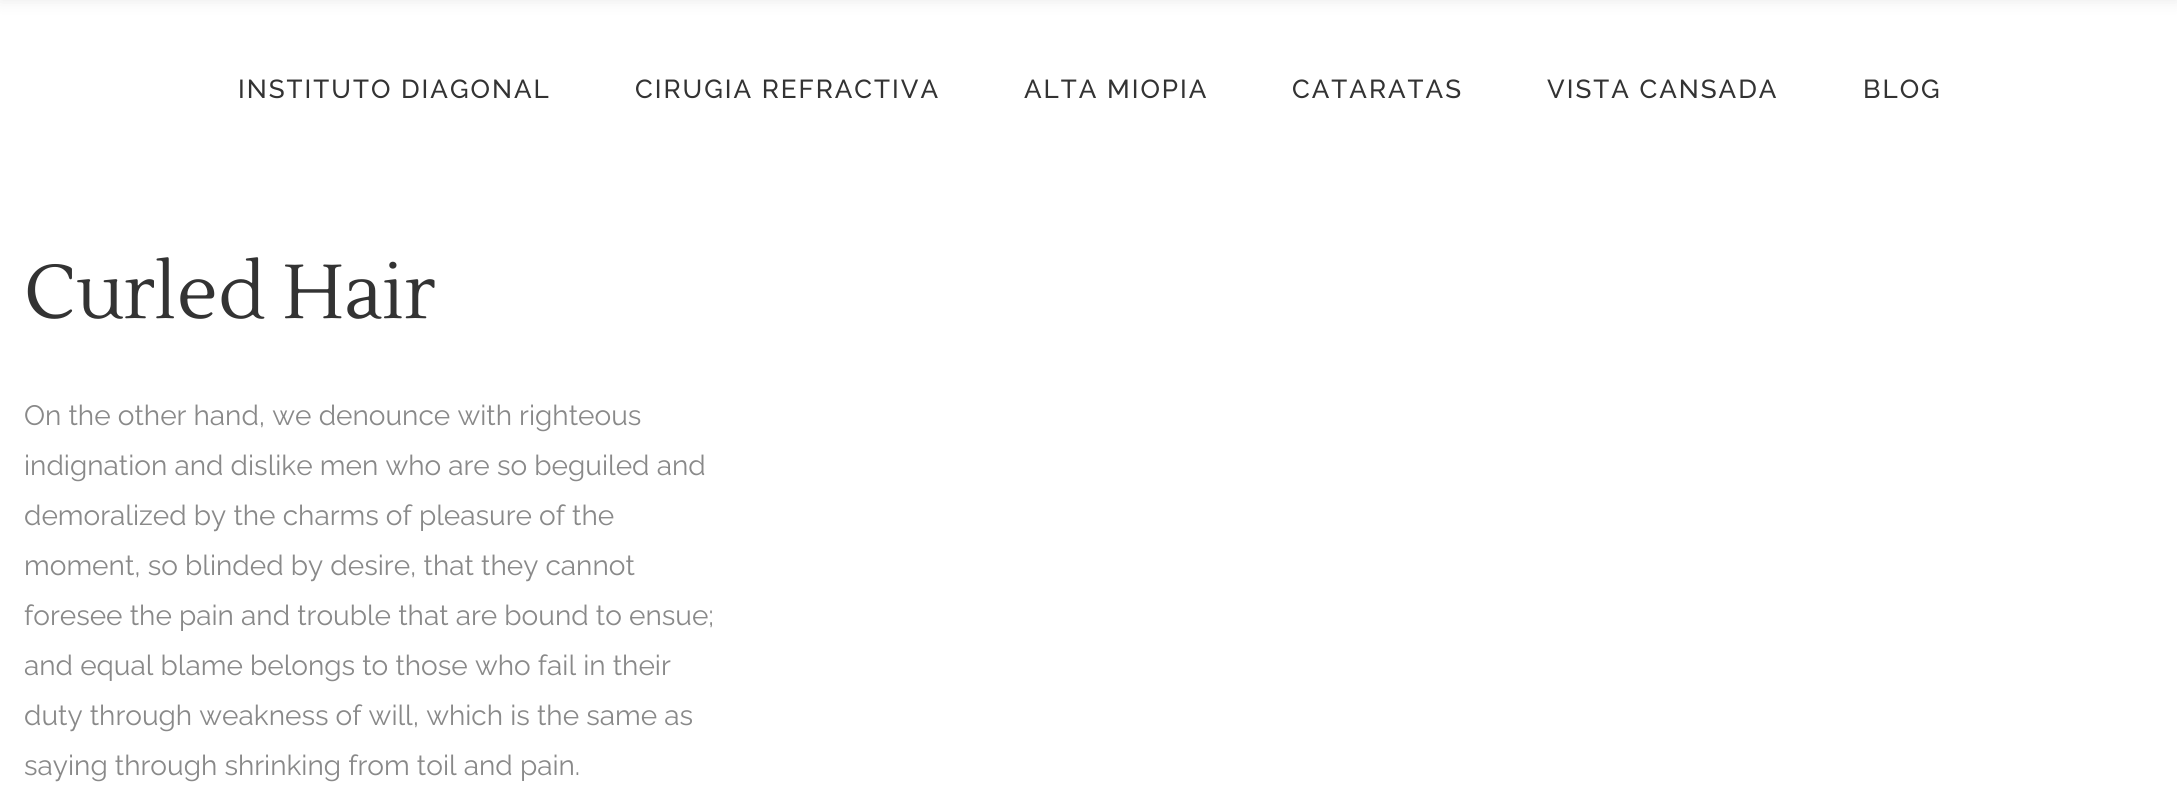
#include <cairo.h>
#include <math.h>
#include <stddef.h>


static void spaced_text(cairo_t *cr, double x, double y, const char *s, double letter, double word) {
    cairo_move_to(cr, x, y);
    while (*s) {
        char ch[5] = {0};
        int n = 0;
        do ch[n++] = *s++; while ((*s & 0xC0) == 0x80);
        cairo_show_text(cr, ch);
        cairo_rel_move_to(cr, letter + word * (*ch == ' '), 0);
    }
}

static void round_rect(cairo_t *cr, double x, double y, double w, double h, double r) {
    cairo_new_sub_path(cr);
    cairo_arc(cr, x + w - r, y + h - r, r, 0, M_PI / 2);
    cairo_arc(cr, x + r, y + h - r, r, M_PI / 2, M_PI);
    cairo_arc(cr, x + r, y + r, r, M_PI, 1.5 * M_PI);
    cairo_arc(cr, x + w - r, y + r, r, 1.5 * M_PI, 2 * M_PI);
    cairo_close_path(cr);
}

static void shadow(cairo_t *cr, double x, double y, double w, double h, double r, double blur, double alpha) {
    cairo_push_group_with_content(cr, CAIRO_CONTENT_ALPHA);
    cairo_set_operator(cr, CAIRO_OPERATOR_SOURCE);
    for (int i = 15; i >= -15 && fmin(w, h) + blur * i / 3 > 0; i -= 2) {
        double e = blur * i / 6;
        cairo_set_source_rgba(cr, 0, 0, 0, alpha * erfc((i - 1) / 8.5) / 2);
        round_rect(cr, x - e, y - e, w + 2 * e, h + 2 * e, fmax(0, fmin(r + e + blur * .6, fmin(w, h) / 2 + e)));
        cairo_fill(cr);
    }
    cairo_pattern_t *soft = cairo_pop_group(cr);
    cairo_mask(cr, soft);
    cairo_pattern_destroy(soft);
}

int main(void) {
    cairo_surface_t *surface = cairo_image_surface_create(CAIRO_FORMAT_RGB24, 2177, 809);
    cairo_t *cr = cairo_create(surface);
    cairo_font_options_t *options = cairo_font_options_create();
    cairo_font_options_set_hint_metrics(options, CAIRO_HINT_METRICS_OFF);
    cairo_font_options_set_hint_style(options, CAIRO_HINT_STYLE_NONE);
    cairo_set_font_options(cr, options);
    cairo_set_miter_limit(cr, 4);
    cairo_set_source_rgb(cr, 1, 1, 1);
    cairo_paint(cr);
    cairo_set_source_rgb(cr, 0, 0, 0);
    shadow(cr, 0, -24, 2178, 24, 0, 8, 0.09);
    cairo_select_font_face(cr, "Raleway Medium", CAIRO_FONT_SLANT_NORMAL, CAIRO_FONT_WEIGHT_NORMAL);
    cairo_set_font_size(cr, 26);
    cairo_set_source_rgb(cr, 0.2, 0.2, 0.2);
    spaced_text(cr, 238, 98, "INSTITUTO DIAGONAL", 2, 0);
    spaced_text(cr, 635, 98, "CIRUGIA REFRACTIVA", 2, 0);
    spaced_text(cr, 1024, 98, "ALTA MIOPIA", 2, 0);
    spaced_text(cr, 1292, 98, "CATARATAS", 2, 0);
    spaced_text(cr, 1547, 98, "VISTA CANSADA", 2, 0);
    spaced_text(cr, 1863, 98, "BLOG", 2, 0);
    cairo_select_font_face(cr, "Lustria", CAIRO_FONT_SLANT_NORMAL, CAIRO_FONT_WEIGHT_NORMAL);
    cairo_set_font_size(cr, 76);
    cairo_move_to(cr, 24, 318);
    cairo_show_text(cr, "Curled Hair");
    cairo_select_font_face(cr, "Raleway", CAIRO_FONT_SLANT_NORMAL, CAIRO_FONT_WEIGHT_NORMAL);
    cairo_set_font_size(cr, 28);
    cairo_set_source_rgb(cr, 0.537, 0.537, 0.537);
    cairo_move_to(cr, 24, 425);
    cairo_show_text(cr, "On the other hand, we denounce with righteous");
    cairo_move_to(cr, 24, 475);
    cairo_show_text(cr, "indignation and dislike men who are so beguiled and");
    cairo_move_to(cr, 24, 525);
    cairo_show_text(cr, "demoralized by the charms of pleasure of the");
    cairo_move_to(cr, 24, 575);
    cairo_show_text(cr, "moment, so blinded by desire, that they cannot");
    cairo_move_to(cr, 24, 625);
    cairo_show_text(cr, "foresee the pain and trouble that are bound to ensue;");
    cairo_move_to(cr, 24, 675);
    cairo_show_text(cr, "and equal blame belongs to those who fail in their");
    cairo_move_to(cr, 24, 725);
    cairo_show_text(cr, "duty through weakness of will, which is the same as");
    cairo_move_to(cr, 24, 775);
    cairo_show_text(cr, "saying through shrinking from toil and pain.");
    cairo_surface_write_to_png(surface, "page.png");
    cairo_font_options_destroy(options);
    cairo_destroy(cr);
    cairo_surface_destroy(surface);
    return 0;
}
